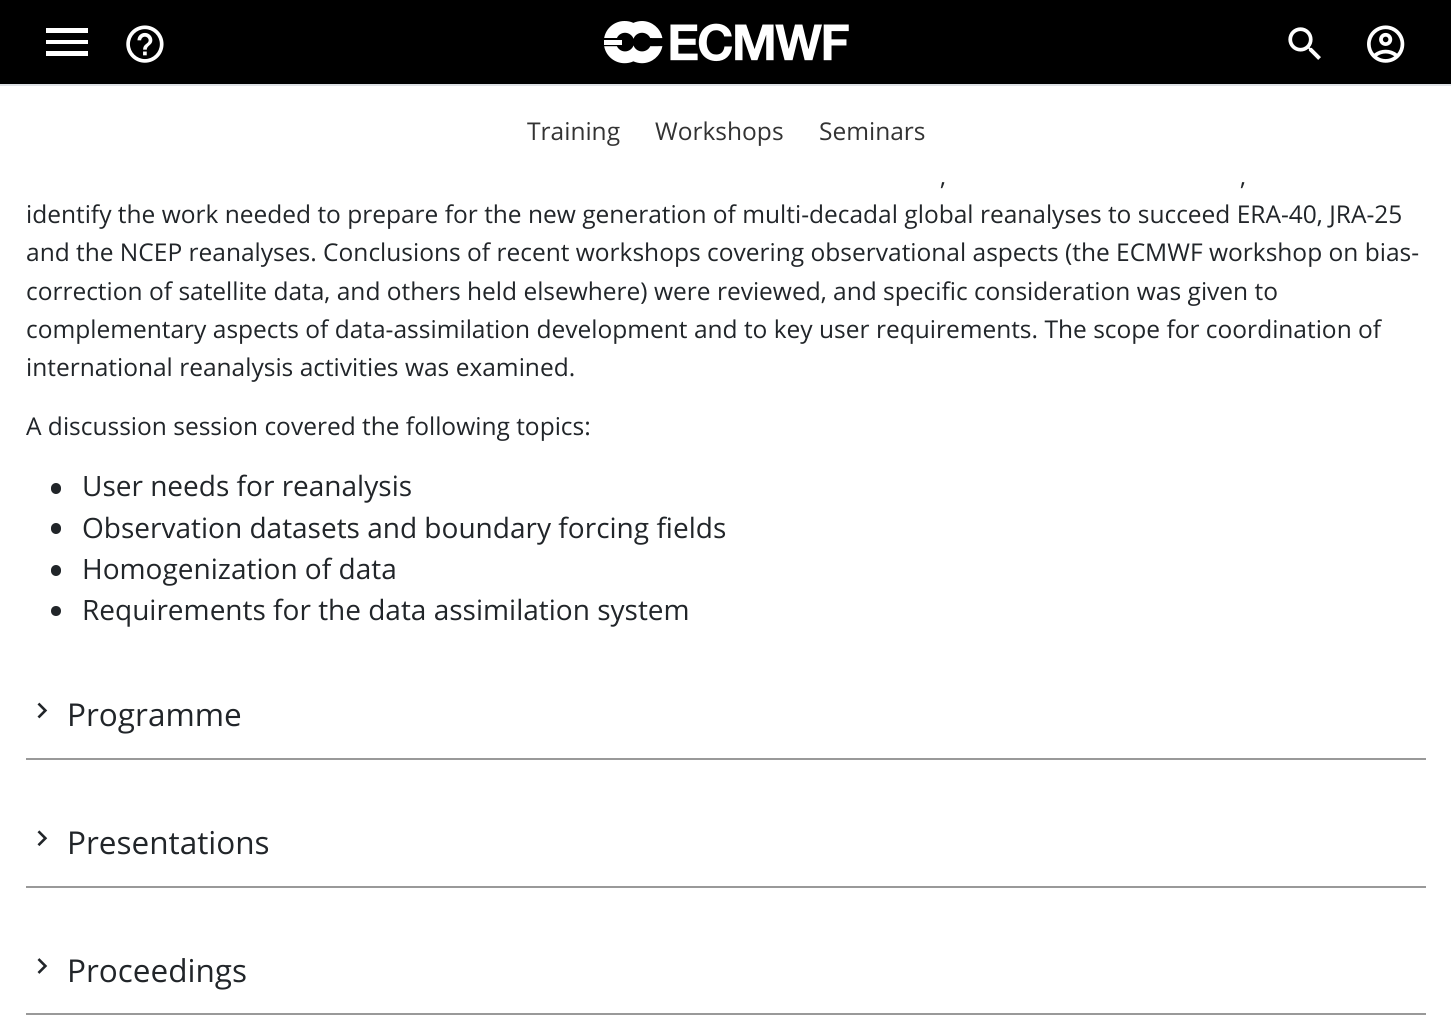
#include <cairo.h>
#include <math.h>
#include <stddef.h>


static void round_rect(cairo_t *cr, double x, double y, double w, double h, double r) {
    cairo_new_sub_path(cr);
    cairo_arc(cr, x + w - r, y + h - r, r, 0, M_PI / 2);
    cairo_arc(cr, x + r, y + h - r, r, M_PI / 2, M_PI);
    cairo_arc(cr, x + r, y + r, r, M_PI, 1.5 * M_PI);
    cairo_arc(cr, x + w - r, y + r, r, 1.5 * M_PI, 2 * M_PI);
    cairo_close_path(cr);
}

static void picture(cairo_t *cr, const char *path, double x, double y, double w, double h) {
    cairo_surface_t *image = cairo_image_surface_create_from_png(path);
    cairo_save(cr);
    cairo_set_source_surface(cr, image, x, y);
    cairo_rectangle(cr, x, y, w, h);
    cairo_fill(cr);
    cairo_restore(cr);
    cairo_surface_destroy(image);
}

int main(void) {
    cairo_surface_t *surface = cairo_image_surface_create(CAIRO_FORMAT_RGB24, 1451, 1031);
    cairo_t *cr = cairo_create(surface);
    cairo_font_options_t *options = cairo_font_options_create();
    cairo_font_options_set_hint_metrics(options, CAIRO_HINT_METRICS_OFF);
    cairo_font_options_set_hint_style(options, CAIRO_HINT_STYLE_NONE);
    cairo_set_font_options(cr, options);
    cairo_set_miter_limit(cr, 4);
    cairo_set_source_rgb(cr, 1, 1, 1);
    cairo_paint(cr);
    cairo_set_source_rgb(cr, 0, 0, 0);
    cairo_rectangle(cr, 0, 0, 1451, 84);
    cairo_fill(cr);
    cairo_set_source_rgb(cr, 0.871, 0.886, 0.902);
    cairo_rectangle(cr, 0, 84, 1451, 2);
    cairo_fill(cr);
    cairo_set_source_rgb(cr, 1, 1, 1);
    cairo_new_path(cr);
    cairo_move_to(cr, 46, 56);
    cairo_line_to(cr, 88, 56);
    cairo_line_to(cr, 88, 51);
    cairo_line_to(cr, 46, 51);
    cairo_close_path(cr);
    cairo_move_to(cr, 46, 44);
    cairo_line_to(cr, 88, 44);
    cairo_line_to(cr, 88, 40);
    cairo_line_to(cr, 46, 40);
    cairo_close_path(cr);
    cairo_move_to(cr, 46, 28);
    cairo_line_to(cr, 46, 33);
    cairo_line_to(cr, 88, 33);
    cairo_line_to(cr, 88, 28);
    cairo_close_path(cr);
    cairo_fill(cr);
    picture(cr, "img1.png", 126, 25, 38, 38);
    picture(cr, "img2.png", 604, 21, 245, 43);
    picture(cr, "img3.png", 1288, 27, 33, 33);
    picture(cr, "img4.png", 1367, 25, 38, 38);
    cairo_select_font_face(cr, "Open Sans", CAIRO_FONT_SLANT_NORMAL, CAIRO_FONT_WEIGHT_NORMAL);
    cairo_set_font_size(cr, 24.5);
    cairo_set_source_rgb(cr, 0.2, 0.2, 0.2);
    cairo_move_to(cr, 527, 140);
    cairo_show_text(cr, "Training");
    cairo_move_to(cr, 655, 140);
    cairo_show_text(cr, "Workshops");
    cairo_move_to(cr, 819, 140);
    cairo_show_text(cr, "Seminars");
    cairo_set_source_rgb(cr, 0.129, 0.145, 0.161);
    cairo_move_to(cr, 940, 185);
    cairo_show_text(cr, ",");
    cairo_move_to(cr, 1240, 185);
    cairo_show_text(cr, ",");
    cairo_move_to(cr, 26, 223);
    cairo_show_text(cr, "identify the work needed to prepare for the new generation of multi-decadal global reanalyses to succeed ERA-40, JRA-25");
    cairo_move_to(cr, 26, 261);
    cairo_show_text(cr, "and the NCEP reanalyses. Conclusions of recent workshops covering observational aspects (the ECMWF workshop on bias-");
    cairo_move_to(cr, 26, 300);
    cairo_show_text(cr, "correction of satellite data, and others held elsewhere) were reviewed, and specific consideration was given to");
    cairo_move_to(cr, 26, 338);
    cairo_show_text(cr, "complementary aspects of data-assimilation development and to key user requirements. The scope for coordination of");
    cairo_move_to(cr, 26, 376);
    cairo_show_text(cr, "international reanalysis activities was examined.");
    cairo_move_to(cr, 26, 435);
    cairo_show_text(cr, "A discussion session covered the following topics:");
    round_rect(cr, 51, 483, 10, 11, 5);
    cairo_fill(cr);
    cairo_set_font_size(cr, 28);
    cairo_move_to(cr, 82, 496);
    cairo_show_text(cr, "User needs for reanalysis");
    round_rect(cr, 51, 523, 10, 11, 5);
    cairo_fill(cr);
    cairo_move_to(cr, 82, 538);
    cairo_show_text(cr, "Observation datasets and boundary forcing fields");
    round_rect(cr, 51, 565, 10, 11, 5);
    cairo_fill(cr);
    cairo_move_to(cr, 82, 579);
    cairo_show_text(cr, "Homogenization of data");
    cairo_new_path(cr);
    cairo_arc(cr, 56, 611, 5, 0, 2 * M_PI);
    cairo_fill(cr);
    cairo_move_to(cr, 82, 620);
    cairo_show_text(cr, "Requirements for the data assimilation system");
    picture(cr, "img5.png", 37, 702, 11, 17);
    cairo_set_font_size(cr, 31.5);
    cairo_move_to(cr, 67, 726);
    cairo_show_text(cr, "Programme");
    cairo_set_source_rgb(cr, 0.6, 0.6, 0.6);
    cairo_rectangle(cr, 26, 758, 1400, 2);
    cairo_fill(cr);
    picture(cr, "img6.png", 37, 830, 11, 16);
    cairo_set_source_rgb(cr, 0.129, 0.145, 0.161);
    cairo_move_to(cr, 67, 854);
    cairo_show_text(cr, "Presentations");
    cairo_set_source_rgb(cr, 0.6, 0.6, 0.6);
    cairo_rectangle(cr, 26, 886, 1400, 2);
    cairo_fill(cr);
    picture(cr, "img7.png", 37, 958, 11, 16);
    cairo_set_source_rgb(cr, 0.129, 0.145, 0.161);
    cairo_move_to(cr, 67, 982);
    cairo_show_text(cr, "Proceedings");
    cairo_set_source_rgb(cr, 0.6, 0.6, 0.6);
    cairo_rectangle(cr, 26, 1013, 1400, 2);
    cairo_fill(cr);
    cairo_surface_write_to_png(surface, "page.png");
    cairo_font_options_destroy(options);
    cairo_destroy(cr);
    cairo_surface_destroy(surface);
    return 0;
}
